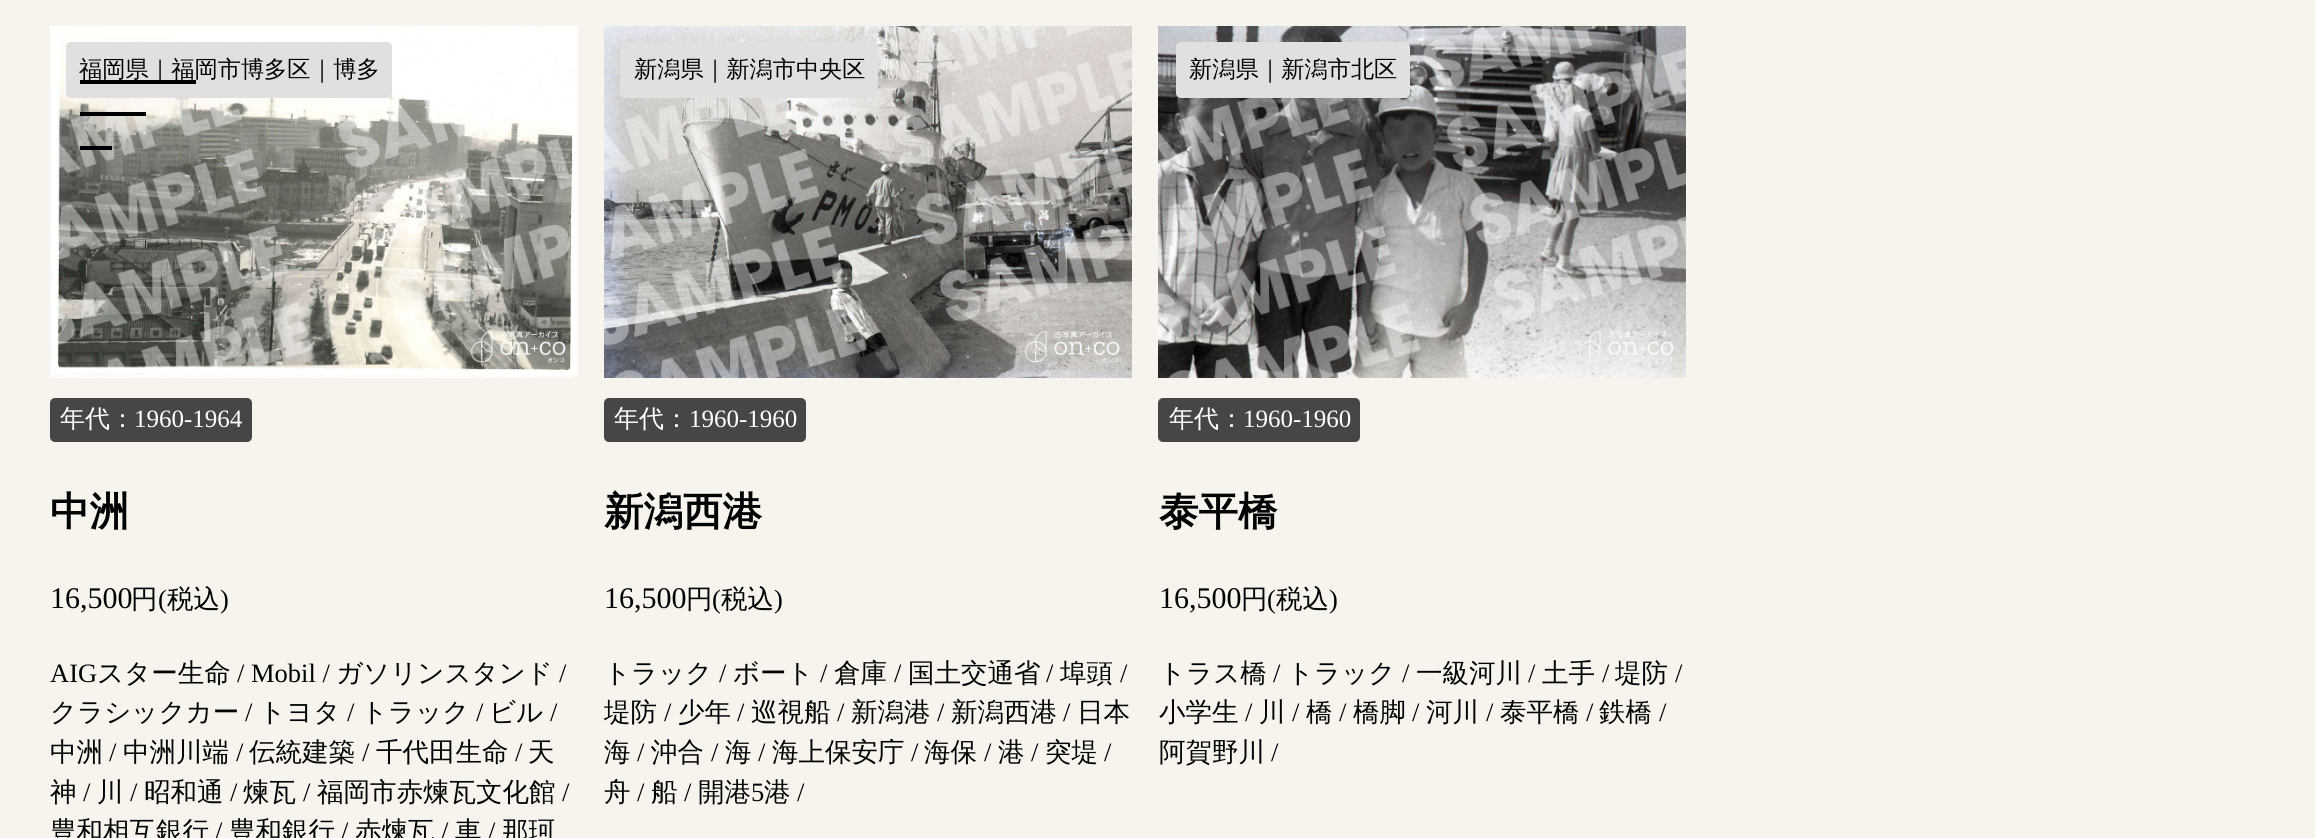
#include <cairo.h>
#include <math.h>
#include <stddef.h>


static void round_rect(cairo_t *cr, double x, double y, double w, double h, double r) {
    cairo_new_sub_path(cr);
    cairo_arc(cr, x + w - r, y + h - r, r, 0, M_PI / 2);
    cairo_arc(cr, x + r, y + h - r, r, M_PI / 2, M_PI);
    cairo_arc(cr, x + r, y + r, r, M_PI, 1.5 * M_PI);
    cairo_arc(cr, x + w - r, y + r, r, 1.5 * M_PI, 2 * M_PI);
    cairo_close_path(cr);
}

static void picture(cairo_t *cr, const char *path, double x, double y, double w, double h) {
    cairo_surface_t *image = cairo_image_surface_create_from_png(path);
    cairo_save(cr);
    cairo_set_source_surface(cr, image, x, y);
    cairo_rectangle(cr, x, y, w, h);
    cairo_fill(cr);
    cairo_restore(cr);
    cairo_surface_destroy(image);
}

int main(void) {
    cairo_surface_t *surface = cairo_image_surface_create(CAIRO_FORMAT_RGB24, 2315, 838);
    cairo_t *cr = cairo_create(surface);
    cairo_font_options_t *options = cairo_font_options_create();
    cairo_font_options_set_hint_metrics(options, CAIRO_HINT_METRICS_OFF);
    cairo_font_options_set_hint_style(options, CAIRO_HINT_STYLE_NONE);
    cairo_set_font_options(cr, options);
    cairo_set_miter_limit(cr, 4);
    cairo_set_source_rgb(cr, 0.961, 0.957, 0.929);
    cairo_paint(cr);
    picture(cr, "img1.png", 50, 26, 528, 352);
    cairo_set_source_rgb(cr, 0.878, 0.878, 0.878);
    round_rect(cr, 66, 42, 326, 56, 5);
    cairo_fill(cr);
    cairo_select_font_face(cr, "WenQuanYi Zen Hei Medium", CAIRO_FONT_SLANT_NORMAL, CAIRO_FONT_WEIGHT_NORMAL);
    cairo_set_font_size(cr, 23.2);
    cairo_set_source_rgb(cr, 0.012, 0.012, 0.012);
    cairo_move_to(cr, 79, 77);
    cairo_show_text(cr, "福岡県｜福岡市博多区｜博多");
    cairo_set_source_rgb(cr, 0.275, 0.275, 0.275);
    round_rect(cr, 50, 398, 202, 44, 5);
    cairo_fill(cr);
    cairo_set_font_size(cr, 25);
    cairo_set_source_rgb(cr, 1, 1, 1);
    cairo_move_to(cr, 60, 427);
    cairo_show_text(cr, "年代：");
    cairo_select_font_face(cr, "Liberation Serif", CAIRO_FONT_SLANT_NORMAL, CAIRO_FONT_WEIGHT_NORMAL);
    cairo_move_to(cr, 134, 427);
    cairo_show_text(cr, "1960-1964");
    cairo_select_font_face(cr, "WenQuanYi Zen Hei", CAIRO_FONT_SLANT_NORMAL, CAIRO_FONT_WEIGHT_BOLD);
    cairo_set_font_size(cr, 39.5);
    cairo_set_source_rgb(cr, 0.012, 0.012, 0.012);
    cairo_move_to(cr, 50, 525);
    cairo_show_text(cr, "中洲");
    cairo_select_font_face(cr, "Liberation Serif", CAIRO_FONT_SLANT_NORMAL, CAIRO_FONT_WEIGHT_NORMAL);
    cairo_set_font_size(cr, 30);
    cairo_move_to(cr, 50, 608);
    cairo_show_text(cr, "16,500");
    cairo_select_font_face(cr, "WenQuanYi Zen Hei Medium", CAIRO_FONT_SLANT_NORMAL, CAIRO_FONT_WEIGHT_NORMAL);
    cairo_set_font_size(cr, 26.5);
    cairo_move_to(cr, 131, 608);
    cairo_show_text(cr, "円");
    cairo_select_font_face(cr, "Liberation Serif", CAIRO_FONT_SLANT_NORMAL, CAIRO_FONT_WEIGHT_NORMAL);
    cairo_move_to(cr, 158, 608);
    cairo_show_text(cr, "(");
    cairo_select_font_face(cr, "WenQuanYi Zen Hei Medium", CAIRO_FONT_SLANT_NORMAL, CAIRO_FONT_WEIGHT_NORMAL);
    cairo_move_to(cr, 167, 608);
    cairo_show_text(cr, "税込");
    cairo_select_font_face(cr, "Liberation Serif", CAIRO_FONT_SLANT_NORMAL, CAIRO_FONT_WEIGHT_NORMAL);
    cairo_move_to(cr, 220, 608);
    cairo_show_text(cr, ")");
    cairo_move_to(cr, 50, 682);
    cairo_show_text(cr, "AIG");
    cairo_select_font_face(cr, "WenQuanYi Zen Hei Medium", CAIRO_FONT_SLANT_NORMAL, CAIRO_FONT_WEIGHT_NORMAL);
    cairo_move_to(cr, 97, 682);
    cairo_show_text(cr, "スター生命");
    cairo_select_font_face(cr, "Liberation Serif", CAIRO_FONT_SLANT_NORMAL, CAIRO_FONT_WEIGHT_NORMAL);
    cairo_move_to(cr, 237, 682);
    cairo_show_text(cr, "/ Mobil /");
    cairo_select_font_face(cr, "WenQuanYi Zen Hei Medium", CAIRO_FONT_SLANT_NORMAL, CAIRO_FONT_WEIGHT_NORMAL);
    cairo_move_to(cr, 336, 682);
    cairo_show_text(cr, "ガソリンスタンド");
    cairo_select_font_face(cr, "Liberation Serif", CAIRO_FONT_SLANT_NORMAL, CAIRO_FONT_WEIGHT_NORMAL);
    cairo_move_to(cr, 559, 682);
    cairo_show_text(cr, "/");
    cairo_select_font_face(cr, "WenQuanYi Zen Hei Medium", CAIRO_FONT_SLANT_NORMAL, CAIRO_FONT_WEIGHT_NORMAL);
    cairo_move_to(cr, 50, 721);
    cairo_show_text(cr, "クラシックカー");
    cairo_select_font_face(cr, "Liberation Serif", CAIRO_FONT_SLANT_NORMAL, CAIRO_FONT_WEIGHT_NORMAL);
    cairo_move_to(cr, 245, 721);
    cairo_show_text(cr, "/");
    cairo_select_font_face(cr, "WenQuanYi Zen Hei Medium", CAIRO_FONT_SLANT_NORMAL, CAIRO_FONT_WEIGHT_NORMAL);
    cairo_move_to(cr, 259, 721);
    cairo_show_text(cr, "トヨタ");
    cairo_select_font_face(cr, "Liberation Serif", CAIRO_FONT_SLANT_NORMAL, CAIRO_FONT_WEIGHT_NORMAL);
    cairo_move_to(cr, 347, 721);
    cairo_show_text(cr, "/");
    cairo_select_font_face(cr, "WenQuanYi Zen Hei Medium", CAIRO_FONT_SLANT_NORMAL, CAIRO_FONT_WEIGHT_NORMAL);
    cairo_move_to(cr, 361, 721);
    cairo_show_text(cr, "トラック");
    cairo_select_font_face(cr, "Liberation Serif", CAIRO_FONT_SLANT_NORMAL, CAIRO_FONT_WEIGHT_NORMAL);
    cairo_move_to(cr, 476, 721);
    cairo_show_text(cr, "/");
    cairo_select_font_face(cr, "WenQuanYi Zen Hei Medium", CAIRO_FONT_SLANT_NORMAL, CAIRO_FONT_WEIGHT_NORMAL);
    cairo_move_to(cr, 489, 721);
    cairo_show_text(cr, "ビル");
    cairo_select_font_face(cr, "Liberation Serif", CAIRO_FONT_SLANT_NORMAL, CAIRO_FONT_WEIGHT_NORMAL);
    cairo_move_to(cr, 550, 721);
    cairo_show_text(cr, "/");
    cairo_select_font_face(cr, "WenQuanYi Zen Hei Medium", CAIRO_FONT_SLANT_NORMAL, CAIRO_FONT_WEIGHT_NORMAL);
    cairo_move_to(cr, 50, 761);
    cairo_show_text(cr, "中洲");
    cairo_select_font_face(cr, "Liberation Serif", CAIRO_FONT_SLANT_NORMAL, CAIRO_FONT_WEIGHT_NORMAL);
    cairo_move_to(cr, 109, 761);
    cairo_show_text(cr, "/");
    cairo_select_font_face(cr, "WenQuanYi Zen Hei Medium", CAIRO_FONT_SLANT_NORMAL, CAIRO_FONT_WEIGHT_NORMAL);
    cairo_move_to(cr, 123, 761);
    cairo_show_text(cr, "中洲川端");
    cairo_select_font_face(cr, "Liberation Serif", CAIRO_FONT_SLANT_NORMAL, CAIRO_FONT_WEIGHT_NORMAL);
    cairo_move_to(cr, 236, 761);
    cairo_show_text(cr, "/");
    cairo_select_font_face(cr, "WenQuanYi Zen Hei Medium", CAIRO_FONT_SLANT_NORMAL, CAIRO_FONT_WEIGHT_NORMAL);
    cairo_move_to(cr, 249, 761);
    cairo_show_text(cr, "伝統建築");
    cairo_select_font_face(cr, "Liberation Serif", CAIRO_FONT_SLANT_NORMAL, CAIRO_FONT_WEIGHT_NORMAL);
    cairo_move_to(cr, 362, 761);
    cairo_show_text(cr, "/");
    cairo_select_font_face(cr, "WenQuanYi Zen Hei Medium", CAIRO_FONT_SLANT_NORMAL, CAIRO_FONT_WEIGHT_NORMAL);
    cairo_move_to(cr, 376, 761);
    cairo_show_text(cr, "千代田生命");
    cairo_select_font_face(cr, "Liberation Serif", CAIRO_FONT_SLANT_NORMAL, CAIRO_FONT_WEIGHT_NORMAL);
    cairo_move_to(cr, 515, 761);
    cairo_show_text(cr, "/");
    cairo_select_font_face(cr, "WenQuanYi Zen Hei Medium", CAIRO_FONT_SLANT_NORMAL, CAIRO_FONT_WEIGHT_NORMAL);
    cairo_move_to(cr, 528, 761);
    cairo_show_text(cr, "天");
    cairo_move_to(cr, 50, 801);
    cairo_show_text(cr, "神");
    cairo_select_font_face(cr, "Liberation Serif", CAIRO_FONT_SLANT_NORMAL, CAIRO_FONT_WEIGHT_NORMAL);
    cairo_move_to(cr, 83, 801);
    cairo_show_text(cr, "/");
    cairo_select_font_face(cr, "WenQuanYi Zen Hei Medium", CAIRO_FONT_SLANT_NORMAL, CAIRO_FONT_WEIGHT_NORMAL);
    cairo_move_to(cr, 97, 801);
    cairo_show_text(cr, "川");
    cairo_select_font_face(cr, "Liberation Serif", CAIRO_FONT_SLANT_NORMAL, CAIRO_FONT_WEIGHT_NORMAL);
    cairo_move_to(cr, 130, 801);
    cairo_show_text(cr, "/");
    cairo_select_font_face(cr, "WenQuanYi Zen Hei Medium", CAIRO_FONT_SLANT_NORMAL, CAIRO_FONT_WEIGHT_NORMAL);
    cairo_move_to(cr, 144, 801);
    cairo_show_text(cr, "昭和通");
    cairo_select_font_face(cr, "Liberation Serif", CAIRO_FONT_SLANT_NORMAL, CAIRO_FONT_WEIGHT_NORMAL);
    cairo_move_to(cr, 230, 801);
    cairo_show_text(cr, "/");
    cairo_select_font_face(cr, "WenQuanYi Zen Hei Medium", CAIRO_FONT_SLANT_NORMAL, CAIRO_FONT_WEIGHT_NORMAL);
    cairo_move_to(cr, 243, 801);
    cairo_show_text(cr, "煉瓦");
    cairo_select_font_face(cr, "Liberation Serif", CAIRO_FONT_SLANT_NORMAL, CAIRO_FONT_WEIGHT_NORMAL);
    cairo_move_to(cr, 303, 801);
    cairo_show_text(cr, "/");
    cairo_select_font_face(cr, "WenQuanYi Zen Hei Medium", CAIRO_FONT_SLANT_NORMAL, CAIRO_FONT_WEIGHT_NORMAL);
    cairo_move_to(cr, 317, 801);
    cairo_show_text(cr, "福岡市赤煉瓦文化館");
    cairo_select_font_face(cr, "Liberation Serif", CAIRO_FONT_SLANT_NORMAL, CAIRO_FONT_WEIGHT_NORMAL);
    cairo_move_to(cr, 562, 801);
    cairo_show_text(cr, "/");
    cairo_select_font_face(cr, "WenQuanYi Zen Hei Medium", CAIRO_FONT_SLANT_NORMAL, CAIRO_FONT_WEIGHT_NORMAL);
    cairo_move_to(cr, 50, 840);
    cairo_show_text(cr, "豊和相互銀行");
    cairo_select_font_face(cr, "Liberation Serif", CAIRO_FONT_SLANT_NORMAL, CAIRO_FONT_WEIGHT_NORMAL);
    cairo_move_to(cr, 215, 840);
    cairo_show_text(cr, "/");
    cairo_select_font_face(cr, "WenQuanYi Zen Hei Medium", CAIRO_FONT_SLANT_NORMAL, CAIRO_FONT_WEIGHT_NORMAL);
    cairo_move_to(cr, 229, 840);
    cairo_show_text(cr, "豊和銀行");
    cairo_select_font_face(cr, "Liberation Serif", CAIRO_FONT_SLANT_NORMAL, CAIRO_FONT_WEIGHT_NORMAL);
    cairo_move_to(cr, 341, 840);
    cairo_show_text(cr, "/");
    cairo_select_font_face(cr, "WenQuanYi Zen Hei Medium", CAIRO_FONT_SLANT_NORMAL, CAIRO_FONT_WEIGHT_NORMAL);
    cairo_move_to(cr, 355, 840);
    cairo_show_text(cr, "赤煉瓦");
    cairo_select_font_face(cr, "Liberation Serif", CAIRO_FONT_SLANT_NORMAL, CAIRO_FONT_WEIGHT_NORMAL);
    cairo_move_to(cr, 441, 840);
    cairo_show_text(cr, "/");
    cairo_select_font_face(cr, "WenQuanYi Zen Hei Medium", CAIRO_FONT_SLANT_NORMAL, CAIRO_FONT_WEIGHT_NORMAL);
    cairo_move_to(cr, 455, 840);
    cairo_show_text(cr, "車");
    cairo_select_font_face(cr, "Liberation Serif", CAIRO_FONT_SLANT_NORMAL, CAIRO_FONT_WEIGHT_NORMAL);
    cairo_move_to(cr, 488, 840);
    cairo_show_text(cr, "/");
    cairo_select_font_face(cr, "WenQuanYi Zen Hei Medium", CAIRO_FONT_SLANT_NORMAL, CAIRO_FONT_WEIGHT_NORMAL);
    cairo_move_to(cr, 502, 840);
    cairo_show_text(cr, "那珂");
    picture(cr, "img2.png", 604, 26, 528, 352);
    cairo_set_source_rgb(cr, 0.878, 0.878, 0.878);
    round_rect(cr, 620, 42, 258, 56, 5);
    cairo_fill(cr);
    cairo_set_font_size(cr, 23.2);
    cairo_set_source_rgb(cr, 0.012, 0.012, 0.012);
    cairo_move_to(cr, 634, 77);
    cairo_show_text(cr, "新潟県｜新潟市中央区");
    cairo_set_source_rgb(cr, 0.275, 0.275, 0.275);
    round_rect(cr, 604, 398, 202, 44, 5);
    cairo_fill(cr);
    cairo_set_font_size(cr, 25);
    cairo_set_source_rgb(cr, 1, 1, 1);
    cairo_move_to(cr, 614, 427);
    cairo_show_text(cr, "年代：");
    cairo_select_font_face(cr, "Liberation Serif", CAIRO_FONT_SLANT_NORMAL, CAIRO_FONT_WEIGHT_NORMAL);
    cairo_move_to(cr, 689, 427);
    cairo_show_text(cr, "1960-1960");
    cairo_select_font_face(cr, "WenQuanYi Zen Hei", CAIRO_FONT_SLANT_NORMAL, CAIRO_FONT_WEIGHT_BOLD);
    cairo_set_font_size(cr, 39.5);
    cairo_set_source_rgb(cr, 0.012, 0.012, 0.012);
    cairo_move_to(cr, 604, 525);
    cairo_show_text(cr, "新潟西港");
    cairo_select_font_face(cr, "Liberation Serif", CAIRO_FONT_SLANT_NORMAL, CAIRO_FONT_WEIGHT_NORMAL);
    cairo_set_font_size(cr, 30);
    cairo_move_to(cr, 604, 608);
    cairo_show_text(cr, "16,500");
    cairo_select_font_face(cr, "WenQuanYi Zen Hei Medium", CAIRO_FONT_SLANT_NORMAL, CAIRO_FONT_WEIGHT_NORMAL);
    cairo_set_font_size(cr, 26.5);
    cairo_move_to(cr, 686, 608);
    cairo_show_text(cr, "円");
    cairo_select_font_face(cr, "Liberation Serif", CAIRO_FONT_SLANT_NORMAL, CAIRO_FONT_WEIGHT_NORMAL);
    cairo_move_to(cr, 712, 608);
    cairo_show_text(cr, "(");
    cairo_select_font_face(cr, "WenQuanYi Zen Hei Medium", CAIRO_FONT_SLANT_NORMAL, CAIRO_FONT_WEIGHT_NORMAL);
    cairo_move_to(cr, 721, 608);
    cairo_show_text(cr, "税込");
    cairo_select_font_face(cr, "Liberation Serif", CAIRO_FONT_SLANT_NORMAL, CAIRO_FONT_WEIGHT_NORMAL);
    cairo_move_to(cr, 774, 608);
    cairo_show_text(cr, ")");
    cairo_select_font_face(cr, "WenQuanYi Zen Hei Medium", CAIRO_FONT_SLANT_NORMAL, CAIRO_FONT_WEIGHT_NORMAL);
    cairo_move_to(cr, 604, 682);
    cairo_show_text(cr, "トラック");
    cairo_select_font_face(cr, "Liberation Serif", CAIRO_FONT_SLANT_NORMAL, CAIRO_FONT_WEIGHT_NORMAL);
    cairo_move_to(cr, 719, 682);
    cairo_show_text(cr, "/");
    cairo_select_font_face(cr, "WenQuanYi Zen Hei Medium", CAIRO_FONT_SLANT_NORMAL, CAIRO_FONT_WEIGHT_NORMAL);
    cairo_move_to(cr, 733, 682);
    cairo_show_text(cr, "ボート");
    cairo_select_font_face(cr, "Liberation Serif", CAIRO_FONT_SLANT_NORMAL, CAIRO_FONT_WEIGHT_NORMAL);
    cairo_move_to(cr, 820, 682);
    cairo_show_text(cr, "/");
    cairo_select_font_face(cr, "WenQuanYi Zen Hei Medium", CAIRO_FONT_SLANT_NORMAL, CAIRO_FONT_WEIGHT_NORMAL);
    cairo_move_to(cr, 834, 682);
    cairo_show_text(cr, "倉庫");
    cairo_select_font_face(cr, "Liberation Serif", CAIRO_FONT_SLANT_NORMAL, CAIRO_FONT_WEIGHT_NORMAL);
    cairo_move_to(cr, 894, 682);
    cairo_show_text(cr, "/");
    cairo_select_font_face(cr, "WenQuanYi Zen Hei Medium", CAIRO_FONT_SLANT_NORMAL, CAIRO_FONT_WEIGHT_NORMAL);
    cairo_move_to(cr, 908, 682);
    cairo_show_text(cr, "国土交通省");
    cairo_select_font_face(cr, "Liberation Serif", CAIRO_FONT_SLANT_NORMAL, CAIRO_FONT_WEIGHT_NORMAL);
    cairo_move_to(cr, 1046, 682);
    cairo_show_text(cr, "/");
    cairo_select_font_face(cr, "WenQuanYi Zen Hei Medium", CAIRO_FONT_SLANT_NORMAL, CAIRO_FONT_WEIGHT_NORMAL);
    cairo_move_to(cr, 1060, 682);
    cairo_show_text(cr, "埠頭");
    cairo_select_font_face(cr, "Liberation Serif", CAIRO_FONT_SLANT_NORMAL, CAIRO_FONT_WEIGHT_NORMAL);
    cairo_move_to(cr, 1120, 682);
    cairo_show_text(cr, "/");
    cairo_select_font_face(cr, "WenQuanYi Zen Hei Medium", CAIRO_FONT_SLANT_NORMAL, CAIRO_FONT_WEIGHT_NORMAL);
    cairo_move_to(cr, 604, 721);
    cairo_show_text(cr, "堤防");
    cairo_select_font_face(cr, "Liberation Serif", CAIRO_FONT_SLANT_NORMAL, CAIRO_FONT_WEIGHT_NORMAL);
    cairo_move_to(cr, 664, 721);
    cairo_show_text(cr, "/");
    cairo_select_font_face(cr, "WenQuanYi Zen Hei Medium", CAIRO_FONT_SLANT_NORMAL, CAIRO_FONT_WEIGHT_NORMAL);
    cairo_move_to(cr, 678, 721);
    cairo_show_text(cr, "少年");
    cairo_select_font_face(cr, "Liberation Serif", CAIRO_FONT_SLANT_NORMAL, CAIRO_FONT_WEIGHT_NORMAL);
    cairo_move_to(cr, 737, 721);
    cairo_show_text(cr, "/");
    cairo_select_font_face(cr, "WenQuanYi Zen Hei Medium", CAIRO_FONT_SLANT_NORMAL, CAIRO_FONT_WEIGHT_NORMAL);
    cairo_move_to(cr, 751, 721);
    cairo_show_text(cr, "巡視船");
    cairo_select_font_face(cr, "Liberation Serif", CAIRO_FONT_SLANT_NORMAL, CAIRO_FONT_WEIGHT_NORMAL);
    cairo_move_to(cr, 837, 721);
    cairo_show_text(cr, "/");
    cairo_select_font_face(cr, "WenQuanYi Zen Hei Medium", CAIRO_FONT_SLANT_NORMAL, CAIRO_FONT_WEIGHT_NORMAL);
    cairo_move_to(cr, 851, 721);
    cairo_show_text(cr, "新潟港");
    cairo_select_font_face(cr, "Liberation Serif", CAIRO_FONT_SLANT_NORMAL, CAIRO_FONT_WEIGHT_NORMAL);
    cairo_move_to(cr, 937, 721);
    cairo_show_text(cr, "/");
    cairo_select_font_face(cr, "WenQuanYi Zen Hei Medium", CAIRO_FONT_SLANT_NORMAL, CAIRO_FONT_WEIGHT_NORMAL);
    cairo_move_to(cr, 951, 721);
    cairo_show_text(cr, "新潟西港");
    cairo_select_font_face(cr, "Liberation Serif", CAIRO_FONT_SLANT_NORMAL, CAIRO_FONT_WEIGHT_NORMAL);
    cairo_move_to(cr, 1063, 721);
    cairo_show_text(cr, "/");
    cairo_select_font_face(cr, "WenQuanYi Zen Hei Medium", CAIRO_FONT_SLANT_NORMAL, CAIRO_FONT_WEIGHT_NORMAL);
    cairo_move_to(cr, 1077, 721);
    cairo_show_text(cr, "日本");
    cairo_move_to(cr, 604, 761);
    cairo_show_text(cr, "海");
    cairo_select_font_face(cr, "Liberation Serif", CAIRO_FONT_SLANT_NORMAL, CAIRO_FONT_WEIGHT_NORMAL);
    cairo_move_to(cr, 637, 761);
    cairo_show_text(cr, "/");
    cairo_select_font_face(cr, "WenQuanYi Zen Hei Medium", CAIRO_FONT_SLANT_NORMAL, CAIRO_FONT_WEIGHT_NORMAL);
    cairo_move_to(cr, 651, 761);
    cairo_show_text(cr, "沖合");
    cairo_select_font_face(cr, "Liberation Serif", CAIRO_FONT_SLANT_NORMAL, CAIRO_FONT_WEIGHT_NORMAL);
    cairo_move_to(cr, 711, 761);
    cairo_show_text(cr, "/");
    cairo_select_font_face(cr, "WenQuanYi Zen Hei Medium", CAIRO_FONT_SLANT_NORMAL, CAIRO_FONT_WEIGHT_NORMAL);
    cairo_move_to(cr, 725, 761);
    cairo_show_text(cr, "海");
    cairo_select_font_face(cr, "Liberation Serif", CAIRO_FONT_SLANT_NORMAL, CAIRO_FONT_WEIGHT_NORMAL);
    cairo_move_to(cr, 758, 761);
    cairo_show_text(cr, "/");
    cairo_select_font_face(cr, "WenQuanYi Zen Hei Medium", CAIRO_FONT_SLANT_NORMAL, CAIRO_FONT_WEIGHT_NORMAL);
    cairo_move_to(cr, 772, 761);
    cairo_show_text(cr, "海上保安庁");
    cairo_select_font_face(cr, "Liberation Serif", CAIRO_FONT_SLANT_NORMAL, CAIRO_FONT_WEIGHT_NORMAL);
    cairo_move_to(cr, 911, 761);
    cairo_show_text(cr, "/");
    cairo_select_font_face(cr, "WenQuanYi Zen Hei Medium", CAIRO_FONT_SLANT_NORMAL, CAIRO_FONT_WEIGHT_NORMAL);
    cairo_move_to(cr, 924, 761);
    cairo_show_text(cr, "海保");
    cairo_select_font_face(cr, "Liberation Serif", CAIRO_FONT_SLANT_NORMAL, CAIRO_FONT_WEIGHT_NORMAL);
    cairo_move_to(cr, 984, 761);
    cairo_show_text(cr, "/");
    cairo_select_font_face(cr, "WenQuanYi Zen Hei Medium", CAIRO_FONT_SLANT_NORMAL, CAIRO_FONT_WEIGHT_NORMAL);
    cairo_move_to(cr, 998, 761);
    cairo_show_text(cr, "港");
    cairo_select_font_face(cr, "Liberation Serif", CAIRO_FONT_SLANT_NORMAL, CAIRO_FONT_WEIGHT_NORMAL);
    cairo_move_to(cr, 1031, 761);
    cairo_show_text(cr, "/");
    cairo_select_font_face(cr, "WenQuanYi Zen Hei Medium", CAIRO_FONT_SLANT_NORMAL, CAIRO_FONT_WEIGHT_NORMAL);
    cairo_move_to(cr, 1045, 761);
    cairo_show_text(cr, "突堤");
    cairo_select_font_face(cr, "Liberation Serif", CAIRO_FONT_SLANT_NORMAL, CAIRO_FONT_WEIGHT_NORMAL);
    cairo_move_to(cr, 1104, 761);
    cairo_show_text(cr, "/");
    cairo_select_font_face(cr, "WenQuanYi Zen Hei Medium", CAIRO_FONT_SLANT_NORMAL, CAIRO_FONT_WEIGHT_NORMAL);
    cairo_move_to(cr, 604, 801);
    cairo_show_text(cr, "舟");
    cairo_select_font_face(cr, "Liberation Serif", CAIRO_FONT_SLANT_NORMAL, CAIRO_FONT_WEIGHT_NORMAL);
    cairo_move_to(cr, 637, 801);
    cairo_show_text(cr, "/");
    cairo_select_font_face(cr, "WenQuanYi Zen Hei Medium", CAIRO_FONT_SLANT_NORMAL, CAIRO_FONT_WEIGHT_NORMAL);
    cairo_move_to(cr, 651, 801);
    cairo_show_text(cr, "船");
    cairo_select_font_face(cr, "Liberation Serif", CAIRO_FONT_SLANT_NORMAL, CAIRO_FONT_WEIGHT_NORMAL);
    cairo_move_to(cr, 684, 801);
    cairo_show_text(cr, "/");
    cairo_select_font_face(cr, "WenQuanYi Zen Hei Medium", CAIRO_FONT_SLANT_NORMAL, CAIRO_FONT_WEIGHT_NORMAL);
    cairo_move_to(cr, 698, 801);
    cairo_show_text(cr, "開港");
    cairo_select_font_face(cr, "Liberation Serif", CAIRO_FONT_SLANT_NORMAL, CAIRO_FONT_WEIGHT_NORMAL);
    cairo_move_to(cr, 751, 801);
    cairo_show_text(cr, "5");
    cairo_select_font_face(cr, "WenQuanYi Zen Hei Medium", CAIRO_FONT_SLANT_NORMAL, CAIRO_FONT_WEIGHT_NORMAL);
    cairo_move_to(cr, 764, 801);
    cairo_show_text(cr, "港");
    cairo_select_font_face(cr, "Liberation Serif", CAIRO_FONT_SLANT_NORMAL, CAIRO_FONT_WEIGHT_NORMAL);
    cairo_move_to(cr, 797, 801);
    cairo_show_text(cr, "/");
    picture(cr, "img3.png", 1158, 26, 528, 352);
    cairo_set_source_rgb(cr, 0.878, 0.878, 0.878);
    round_rect(cr, 1176, 42, 234, 56, 5);
    cairo_fill(cr);
    cairo_select_font_face(cr, "WenQuanYi Zen Hei Medium", CAIRO_FONT_SLANT_NORMAL, CAIRO_FONT_WEIGHT_NORMAL);
    cairo_set_font_size(cr, 23.2);
    cairo_set_source_rgb(cr, 0.012, 0.012, 0.012);
    cairo_move_to(cr, 1189, 77);
    cairo_show_text(cr, "新潟県｜新潟市北区");
    cairo_set_source_rgb(cr, 0.275, 0.275, 0.275);
    round_rect(cr, 1158, 398, 202, 44, 5);
    cairo_fill(cr);
    cairo_set_font_size(cr, 25);
    cairo_set_source_rgb(cr, 1, 1, 1);
    cairo_move_to(cr, 1169, 427);
    cairo_show_text(cr, "年代：");
    cairo_select_font_face(cr, "Liberation Serif", CAIRO_FONT_SLANT_NORMAL, CAIRO_FONT_WEIGHT_NORMAL);
    cairo_move_to(cr, 1243, 427);
    cairo_show_text(cr, "1960-1960");
    cairo_select_font_face(cr, "WenQuanYi Zen Hei", CAIRO_FONT_SLANT_NORMAL, CAIRO_FONT_WEIGHT_BOLD);
    cairo_set_font_size(cr, 39.5);
    cairo_set_source_rgb(cr, 0.012, 0.012, 0.012);
    cairo_move_to(cr, 1159, 525);
    cairo_show_text(cr, "泰平橋");
    cairo_select_font_face(cr, "Liberation Serif", CAIRO_FONT_SLANT_NORMAL, CAIRO_FONT_WEIGHT_NORMAL);
    cairo_set_font_size(cr, 30);
    cairo_move_to(cr, 1159, 608);
    cairo_show_text(cr, "16,500");
    cairo_select_font_face(cr, "WenQuanYi Zen Hei Medium", CAIRO_FONT_SLANT_NORMAL, CAIRO_FONT_WEIGHT_NORMAL);
    cairo_set_font_size(cr, 26.5);
    cairo_move_to(cr, 1241, 608);
    cairo_show_text(cr, "円");
    cairo_select_font_face(cr, "Liberation Serif", CAIRO_FONT_SLANT_NORMAL, CAIRO_FONT_WEIGHT_NORMAL);
    cairo_move_to(cr, 1267, 608);
    cairo_show_text(cr, "(");
    cairo_select_font_face(cr, "WenQuanYi Zen Hei Medium", CAIRO_FONT_SLANT_NORMAL, CAIRO_FONT_WEIGHT_NORMAL);
    cairo_move_to(cr, 1276, 608);
    cairo_show_text(cr, "税込");
    cairo_select_font_face(cr, "Liberation Serif", CAIRO_FONT_SLANT_NORMAL, CAIRO_FONT_WEIGHT_NORMAL);
    cairo_move_to(cr, 1329, 608);
    cairo_show_text(cr, ")");
    cairo_select_font_face(cr, "WenQuanYi Zen Hei Medium", CAIRO_FONT_SLANT_NORMAL, CAIRO_FONT_WEIGHT_NORMAL);
    cairo_move_to(cr, 1159, 682);
    cairo_show_text(cr, "トラス橋");
    cairo_select_font_face(cr, "Liberation Serif", CAIRO_FONT_SLANT_NORMAL, CAIRO_FONT_WEIGHT_NORMAL);
    cairo_move_to(cr, 1273, 682);
    cairo_show_text(cr, "/");
    cairo_select_font_face(cr, "WenQuanYi Zen Hei Medium", CAIRO_FONT_SLANT_NORMAL, CAIRO_FONT_WEIGHT_NORMAL);
    cairo_move_to(cr, 1287, 682);
    cairo_show_text(cr, "トラック");
    cairo_select_font_face(cr, "Liberation Serif", CAIRO_FONT_SLANT_NORMAL, CAIRO_FONT_WEIGHT_NORMAL);
    cairo_move_to(cr, 1402, 682);
    cairo_show_text(cr, "/");
    cairo_select_font_face(cr, "WenQuanYi Zen Hei Medium", CAIRO_FONT_SLANT_NORMAL, CAIRO_FONT_WEIGHT_NORMAL);
    cairo_move_to(cr, 1416, 682);
    cairo_show_text(cr, "一級河川");
    cairo_select_font_face(cr, "Liberation Serif", CAIRO_FONT_SLANT_NORMAL, CAIRO_FONT_WEIGHT_NORMAL);
    cairo_move_to(cr, 1528, 682);
    cairo_show_text(cr, "/");
    cairo_select_font_face(cr, "WenQuanYi Zen Hei Medium", CAIRO_FONT_SLANT_NORMAL, CAIRO_FONT_WEIGHT_NORMAL);
    cairo_move_to(cr, 1542, 682);
    cairo_show_text(cr, "土手");
    cairo_select_font_face(cr, "Liberation Serif", CAIRO_FONT_SLANT_NORMAL, CAIRO_FONT_WEIGHT_NORMAL);
    cairo_move_to(cr, 1602, 682);
    cairo_show_text(cr, "/");
    cairo_select_font_face(cr, "WenQuanYi Zen Hei Medium", CAIRO_FONT_SLANT_NORMAL, CAIRO_FONT_WEIGHT_NORMAL);
    cairo_move_to(cr, 1615, 682);
    cairo_show_text(cr, "堤防");
    cairo_select_font_face(cr, "Liberation Serif", CAIRO_FONT_SLANT_NORMAL, CAIRO_FONT_WEIGHT_NORMAL);
    cairo_move_to(cr, 1675, 682);
    cairo_show_text(cr, "/");
    cairo_select_font_face(cr, "WenQuanYi Zen Hei Medium", CAIRO_FONT_SLANT_NORMAL, CAIRO_FONT_WEIGHT_NORMAL);
    cairo_move_to(cr, 1159, 721);
    cairo_show_text(cr, "小学生");
    cairo_select_font_face(cr, "Liberation Serif", CAIRO_FONT_SLANT_NORMAL, CAIRO_FONT_WEIGHT_NORMAL);
    cairo_move_to(cr, 1245, 721);
    cairo_show_text(cr, "/");
    cairo_select_font_face(cr, "WenQuanYi Zen Hei Medium", CAIRO_FONT_SLANT_NORMAL, CAIRO_FONT_WEIGHT_NORMAL);
    cairo_move_to(cr, 1259, 721);
    cairo_show_text(cr, "川");
    cairo_select_font_face(cr, "Liberation Serif", CAIRO_FONT_SLANT_NORMAL, CAIRO_FONT_WEIGHT_NORMAL);
    cairo_move_to(cr, 1292, 721);
    cairo_show_text(cr, "/");
    cairo_select_font_face(cr, "WenQuanYi Zen Hei Medium", CAIRO_FONT_SLANT_NORMAL, CAIRO_FONT_WEIGHT_NORMAL);
    cairo_move_to(cr, 1306, 721);
    cairo_show_text(cr, "橋");
    cairo_select_font_face(cr, "Liberation Serif", CAIRO_FONT_SLANT_NORMAL, CAIRO_FONT_WEIGHT_NORMAL);
    cairo_move_to(cr, 1339, 721);
    cairo_show_text(cr, "/");
    cairo_select_font_face(cr, "WenQuanYi Zen Hei Medium", CAIRO_FONT_SLANT_NORMAL, CAIRO_FONT_WEIGHT_NORMAL);
    cairo_move_to(cr, 1353, 721);
    cairo_show_text(cr, "橋脚");
    cairo_select_font_face(cr, "Liberation Serif", CAIRO_FONT_SLANT_NORMAL, CAIRO_FONT_WEIGHT_NORMAL);
    cairo_move_to(cr, 1412, 721);
    cairo_show_text(cr, "/");
    cairo_select_font_face(cr, "WenQuanYi Zen Hei Medium", CAIRO_FONT_SLANT_NORMAL, CAIRO_FONT_WEIGHT_NORMAL);
    cairo_move_to(cr, 1426, 721);
    cairo_show_text(cr, "河川");
    cairo_select_font_face(cr, "Liberation Serif", CAIRO_FONT_SLANT_NORMAL, CAIRO_FONT_WEIGHT_NORMAL);
    cairo_move_to(cr, 1486, 721);
    cairo_show_text(cr, "/");
    cairo_select_font_face(cr, "WenQuanYi Zen Hei Medium", CAIRO_FONT_SLANT_NORMAL, CAIRO_FONT_WEIGHT_NORMAL);
    cairo_move_to(cr, 1500, 721);
    cairo_show_text(cr, "泰平橋");
    cairo_select_font_face(cr, "Liberation Serif", CAIRO_FONT_SLANT_NORMAL, CAIRO_FONT_WEIGHT_NORMAL);
    cairo_move_to(cr, 1586, 721);
    cairo_show_text(cr, "/");
    cairo_select_font_face(cr, "WenQuanYi Zen Hei Medium", CAIRO_FONT_SLANT_NORMAL, CAIRO_FONT_WEIGHT_NORMAL);
    cairo_move_to(cr, 1599, 721);
    cairo_show_text(cr, "鉄橋");
    cairo_select_font_face(cr, "Liberation Serif", CAIRO_FONT_SLANT_NORMAL, CAIRO_FONT_WEIGHT_NORMAL);
    cairo_move_to(cr, 1659, 721);
    cairo_show_text(cr, "/");
    cairo_select_font_face(cr, "WenQuanYi Zen Hei Medium", CAIRO_FONT_SLANT_NORMAL, CAIRO_FONT_WEIGHT_NORMAL);
    cairo_move_to(cr, 1159, 761);
    cairo_show_text(cr, "阿賀野川");
    cairo_select_font_face(cr, "Liberation Serif", CAIRO_FONT_SLANT_NORMAL, CAIRO_FONT_WEIGHT_NORMAL);
    cairo_move_to(cr, 1271, 761);
    cairo_show_text(cr, "/");
    cairo_set_source_rgb(cr, 0, 0, 0);
    cairo_rectangle(cr, 80, 80, 116, 4);
    cairo_fill(cr);
    cairo_rectangle(cr, 80, 112, 66, 4);
    cairo_fill(cr);
    cairo_rectangle(cr, 80, 146, 32, 4);
    cairo_fill(cr);
    cairo_surface_write_to_png(surface, "page.png");
    cairo_font_options_destroy(options);
    cairo_destroy(cr);
    cairo_surface_destroy(surface);
    return 0;
}
